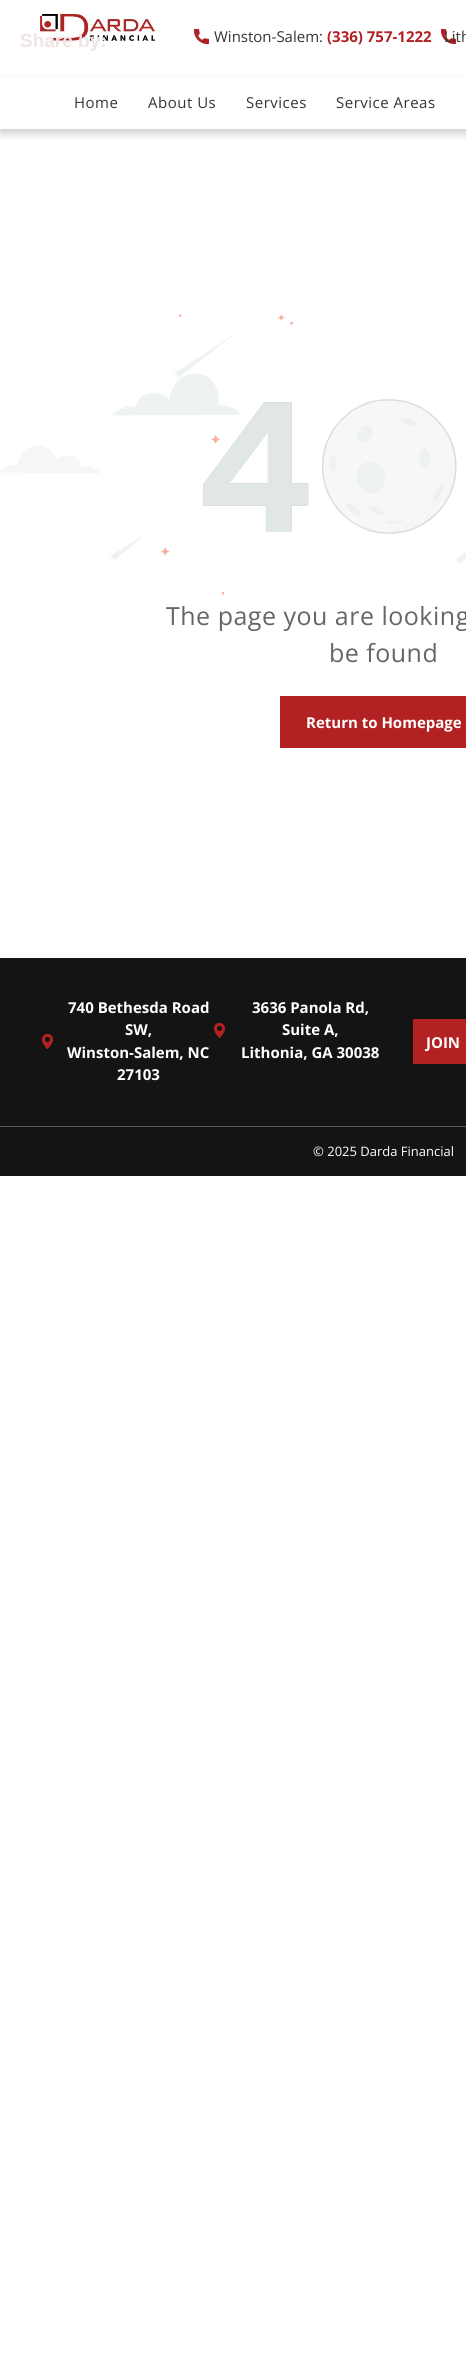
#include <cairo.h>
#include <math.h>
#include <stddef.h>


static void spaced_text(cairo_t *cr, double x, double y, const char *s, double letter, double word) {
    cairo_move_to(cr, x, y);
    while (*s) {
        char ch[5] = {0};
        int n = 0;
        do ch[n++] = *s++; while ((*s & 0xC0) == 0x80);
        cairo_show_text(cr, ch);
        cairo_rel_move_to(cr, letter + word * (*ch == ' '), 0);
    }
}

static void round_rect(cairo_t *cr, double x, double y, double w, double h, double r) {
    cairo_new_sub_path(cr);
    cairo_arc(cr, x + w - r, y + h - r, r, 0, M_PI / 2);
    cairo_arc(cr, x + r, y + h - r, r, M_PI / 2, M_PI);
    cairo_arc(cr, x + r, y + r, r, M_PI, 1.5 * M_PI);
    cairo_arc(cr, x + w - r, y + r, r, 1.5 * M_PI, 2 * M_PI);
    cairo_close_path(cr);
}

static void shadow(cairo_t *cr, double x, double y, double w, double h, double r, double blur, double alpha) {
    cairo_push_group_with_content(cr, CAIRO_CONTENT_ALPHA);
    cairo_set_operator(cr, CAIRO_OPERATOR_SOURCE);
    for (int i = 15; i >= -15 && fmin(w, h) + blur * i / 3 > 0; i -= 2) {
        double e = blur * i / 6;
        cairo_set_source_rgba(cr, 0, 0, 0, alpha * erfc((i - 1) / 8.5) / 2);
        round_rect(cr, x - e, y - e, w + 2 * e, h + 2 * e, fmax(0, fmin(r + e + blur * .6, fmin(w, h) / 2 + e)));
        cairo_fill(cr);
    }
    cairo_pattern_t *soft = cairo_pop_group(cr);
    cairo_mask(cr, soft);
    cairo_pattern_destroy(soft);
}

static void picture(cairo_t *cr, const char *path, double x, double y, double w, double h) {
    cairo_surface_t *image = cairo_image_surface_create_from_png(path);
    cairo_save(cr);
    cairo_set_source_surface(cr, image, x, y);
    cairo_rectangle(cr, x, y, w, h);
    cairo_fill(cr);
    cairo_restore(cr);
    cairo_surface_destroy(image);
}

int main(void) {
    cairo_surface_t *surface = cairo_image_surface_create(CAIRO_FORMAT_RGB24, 466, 2354);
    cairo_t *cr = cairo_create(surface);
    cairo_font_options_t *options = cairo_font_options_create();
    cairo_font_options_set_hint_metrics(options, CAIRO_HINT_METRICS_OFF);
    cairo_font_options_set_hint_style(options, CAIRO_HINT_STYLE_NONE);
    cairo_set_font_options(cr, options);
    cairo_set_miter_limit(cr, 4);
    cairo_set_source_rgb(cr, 1, 1, 1);
    cairo_paint(cr);
    cairo_save(cr);
    cairo_rectangle(cr, 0, 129, 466, 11);
    cairo_clip(cr);
    cairo_set_source_rgb(cr, 0, 0, 0);
    shadow(cr, 0, 3, 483, 129, 0, 5.5, 0.25);
    cairo_restore(cr);
    picture(cr, "img1.png", 40, 14, 115, 27);
    cairo_select_font_face(cr, "Liberation Sans", CAIRO_FONT_SLANT_NORMAL, CAIRO_FONT_WEIGHT_BOLD);
    cairo_set_font_size(cr, 19);
    cairo_set_source_rgb(cr, 0.941, 0.898, 0.898);
    cairo_move_to(cr, 20, 47);
    cairo_show_text(cr, "Share by:");
    cairo_set_source_rgb(cr, 0.961, 0.961, 0.961);
    cairo_rectangle(cr, 0, 75, 466, 1);
    cairo_fill(cr);
    picture(cr, "img2.png", 194, 29, 15, 15);
    cairo_select_font_face(cr, "Open Sans", CAIRO_FONT_SLANT_NORMAL, CAIRO_FONT_WEIGHT_NORMAL);
    cairo_set_font_size(cr, 15);
    cairo_set_source_rgb(cr, 0.204, 0.204, 0.204);
    cairo_move_to(cr, 214, 42);
    cairo_show_text(cr, "Winston-Salem:");
    cairo_select_font_face(cr, "Open Sans", CAIRO_FONT_SLANT_NORMAL, CAIRO_FONT_WEIGHT_BOLD);
    cairo_set_source_rgb(cr, 0.698, 0.133, 0.133);
    cairo_move_to(cr, 327, 42);
    cairo_show_text(cr, "(336) 757-1222");
    picture(cr, "img2.png", 441, 29, 15, 15);
    cairo_select_font_face(cr, "Open Sans", CAIRO_FONT_SLANT_NORMAL, CAIRO_FONT_WEIGHT_NORMAL);
    cairo_set_source_rgb(cr, 0.204, 0.204, 0.204);
    cairo_move_to(cr, 444, 42);
    cairo_show_text(cr, "Lith");
    spaced_text(cr, 74, 108, "Home", 0.5, 0);
    spaced_text(cr, 148, 108, "About Us", 0.5, 0);
    spaced_text(cr, 246, 108, "Services", 0.5, 0);
    spaced_text(cr, 336, 108, "Service Areas", 0.5, 0);
    picture(cr, "img3.png", 0, 314, 466, 281);
    cairo_set_font_size(cr, 25);
    cairo_set_source_rgb(cr, 0.4, 0.4, 0.4);
    spaced_text(cr, 166, 625, "The page you are looking", 0.5, 0);
    spaced_text(cr, 329, 662, "be found", 0.5, 0);
    cairo_set_source_rgb(cr, 0.698, 0.133, 0.133);
    cairo_rectangle(cr, 280, 696, 186, 52);
    cairo_fill(cr);
    cairo_select_font_face(cr, "Open Sans", CAIRO_FONT_SLANT_NORMAL, CAIRO_FONT_WEIGHT_BOLD);
    cairo_set_font_size(cr, 15);
    cairo_set_source_rgb(cr, 1, 1, 1);
    cairo_move_to(cr, 306, 728);
    cairo_show_text(cr, "Return to Homepage");
    cairo_set_source_rgb(cr, 0.082, 0.082, 0.082);
    cairo_rectangle(cr, 0, 958, 466, 218);
    cairo_fill(cr);
    cairo_set_source_rgb(cr, 0.345, 0.345, 0.345);
    cairo_rectangle(cr, 0, 1126, 466, 1);
    cairo_fill(cr);
    picture(cr, "img4.png", 42, 1034, 11, 15);
    cairo_set_source_rgb(cr, 1, 1, 1);
    cairo_move_to(cr, 68, 1013);
    cairo_show_text(cr, "740 Bethesda Road");
    cairo_move_to(cr, 125, 1035);
    cairo_show_text(cr, "SW,");
    cairo_move_to(cr, 67, 1058);
    cairo_show_text(cr, "Winston-Salem, NC");
    cairo_move_to(cr, 117, 1080);
    cairo_show_text(cr, "27103");
    picture(cr, "img4.png", 214, 1023, 11, 15);
    cairo_move_to(cr, 252, 1013);
    cairo_show_text(cr, "3636 Panola Rd,");
    cairo_move_to(cr, 282, 1035);
    cairo_show_text(cr, "Suite A,");
    cairo_move_to(cr, 241, 1058);
    cairo_show_text(cr, "Lithonia, GA 30038");
    cairo_set_source_rgb(cr, 0.698, 0.133, 0.133);
    cairo_rectangle(cr, 413, 1019, 53, 45);
    cairo_fill(cr);
    cairo_set_source_rgb(cr, 1, 1, 1);
    cairo_move_to(cr, 426, 1048);
    cairo_show_text(cr, "JOIN");
    cairo_select_font_face(cr, "Open Sans", CAIRO_FONT_SLANT_NORMAL, CAIRO_FONT_WEIGHT_NORMAL);
    cairo_set_font_size(cr, 13);
    cairo_move_to(cr, 313, 1156);
    cairo_show_text(cr, "© 2025 Darda Financial");
    cairo_surface_write_to_png(surface, "page.png");
    cairo_font_options_destroy(options);
    cairo_destroy(cr);
    cairo_surface_destroy(surface);
    return 0;
}
